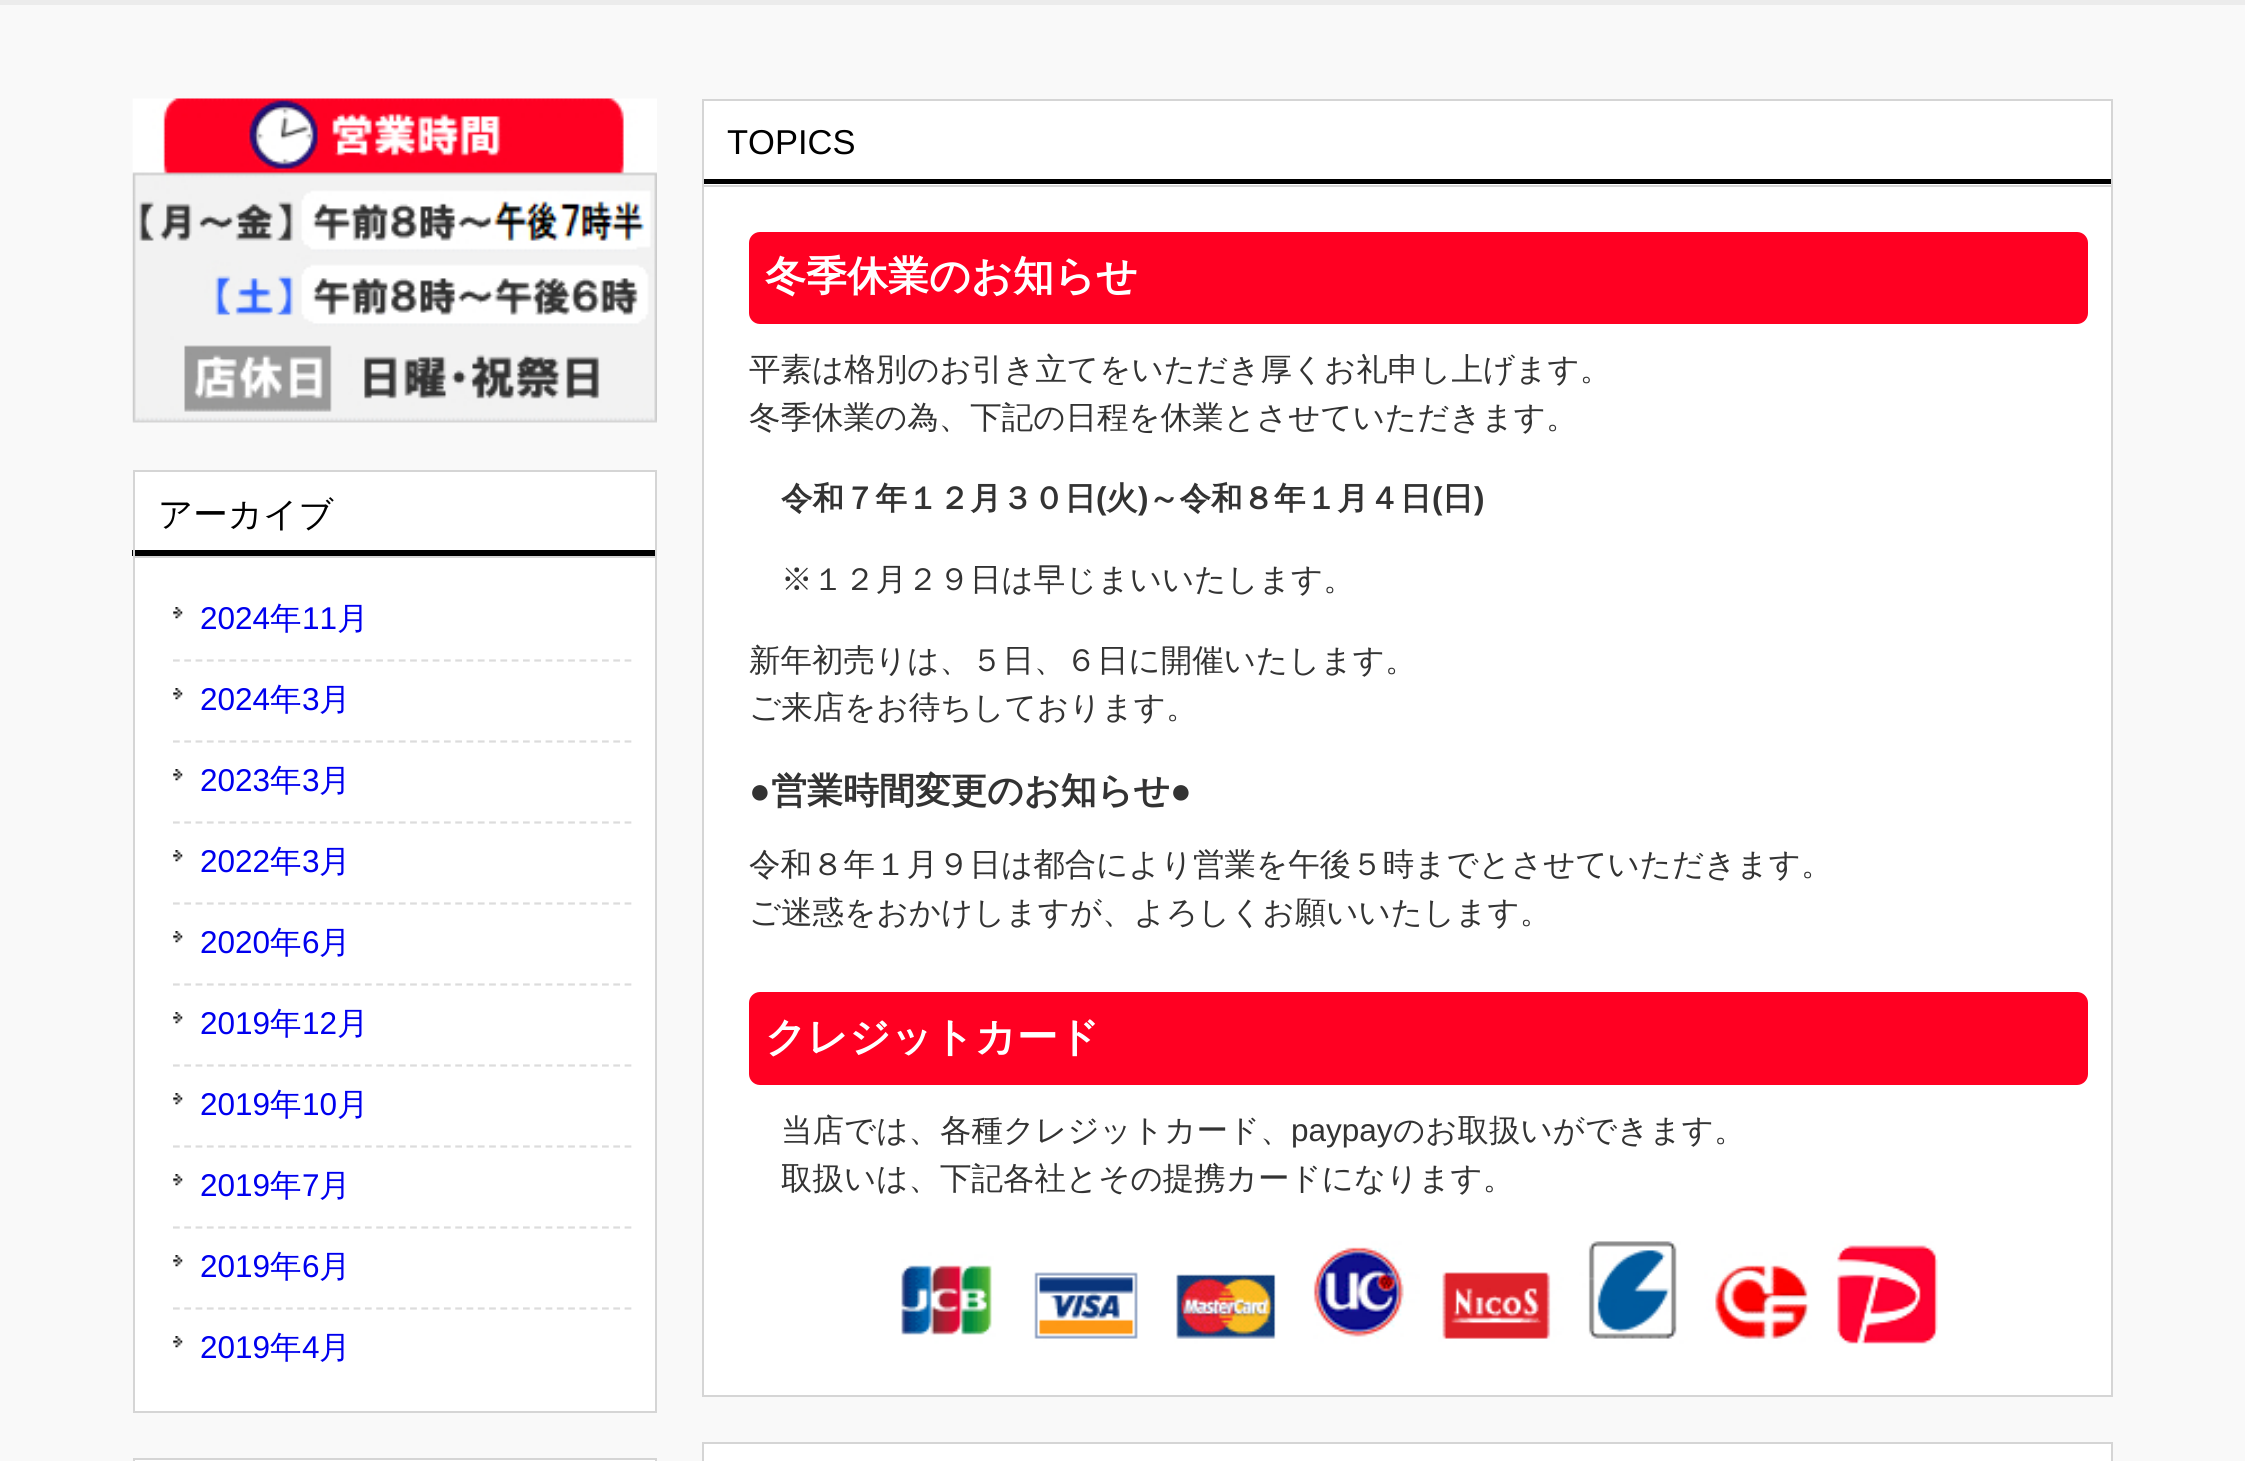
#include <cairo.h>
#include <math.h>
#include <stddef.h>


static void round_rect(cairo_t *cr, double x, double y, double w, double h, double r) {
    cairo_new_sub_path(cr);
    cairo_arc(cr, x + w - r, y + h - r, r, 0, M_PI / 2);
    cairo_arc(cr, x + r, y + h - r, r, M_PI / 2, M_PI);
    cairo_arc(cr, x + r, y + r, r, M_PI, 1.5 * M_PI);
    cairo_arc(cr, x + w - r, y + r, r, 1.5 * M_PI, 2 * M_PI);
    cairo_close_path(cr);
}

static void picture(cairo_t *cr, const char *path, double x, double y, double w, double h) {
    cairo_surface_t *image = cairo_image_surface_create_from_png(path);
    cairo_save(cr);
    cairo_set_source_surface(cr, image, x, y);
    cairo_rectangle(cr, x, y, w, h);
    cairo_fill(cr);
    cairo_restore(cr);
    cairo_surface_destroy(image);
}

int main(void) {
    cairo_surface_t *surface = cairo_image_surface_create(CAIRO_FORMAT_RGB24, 2245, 1461);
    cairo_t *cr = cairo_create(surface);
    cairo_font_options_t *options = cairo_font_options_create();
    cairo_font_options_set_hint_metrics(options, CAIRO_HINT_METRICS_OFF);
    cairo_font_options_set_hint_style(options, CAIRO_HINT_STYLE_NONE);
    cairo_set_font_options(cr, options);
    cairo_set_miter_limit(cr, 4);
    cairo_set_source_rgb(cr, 0.976, 0.976, 0.976);
    cairo_paint(cr);
    cairo_set_source_rgb(cr, 0.922, 0.922, 0.922);
    cairo_rectangle(cr, 0, 0, 2245, 5);
    cairo_fill(cr);
    picture(cr, "img1.png", 132, 98, 525, 325);
    cairo_set_source_rgb(cr, 1, 1, 1);
    cairo_rectangle(cr, 135, 472, 520, 78);
    cairo_fill(cr);
    cairo_set_source_rgb(cr, 0, 0, 0);
    cairo_rectangle(cr, 132, 550, 525, 6);
    cairo_fill(cr);
    cairo_set_source_rgb(cr, 0.835, 0.835, 0.835);
    cairo_rectangle(cr, 133, 470, 524, 2);
    cairo_fill(cr);
    cairo_rectangle(cr, 655, 470, 2, 86);
    cairo_fill(cr);
    cairo_rectangle(cr, 133, 470, 2, 86);
    cairo_fill(cr);
    cairo_select_font_face(cr, "WenQuanYi Zen Hei Medium", CAIRO_FONT_SLANT_NORMAL, CAIRO_FONT_WEIGHT_NORMAL);
    cairo_set_font_size(cr, 34.5);
    cairo_set_source_rgb(cr, 0, 0, 0);
    cairo_move_to(cr, 158, 526);
    cairo_show_text(cr, "アーカイブ");
    cairo_set_source_rgb(cr, 1, 1, 1);
    cairo_rectangle(cr, 134, 557, 522, 855);
    cairo_fill_preserve(cr);
    cairo_set_source_rgb(cr, 0.835, 0.835, 0.835);
    cairo_stroke(cr);
    picture(cr, "img2.png", 173, 607, 10, 12);
    cairo_new_path(cr);
    cairo_move_to(cr, 173, 660.5);
    cairo_line_to(cr, 632, 660.5);
    cairo_set_source_rgb(cr, 0.863, 0.863, 0.863);
    cairo_set_line_width(cr, 2.2);
    cairo_set_dash(cr, (double[]){6.75, 4.54}, 2, 0);
    cairo_stroke(cr);
    cairo_select_font_face(cr, "Liberation Sans", CAIRO_FONT_SLANT_NORMAL, CAIRO_FONT_WEIGHT_NORMAL);
    cairo_set_font_size(cr, 31.5);
    cairo_set_source_rgb(cr, 0, 0, 0.933);
    cairo_move_to(cr, 200, 629);
    cairo_show_text(cr, "2024");
    cairo_select_font_face(cr, "WenQuanYi Zen Hei Medium", CAIRO_FONT_SLANT_NORMAL, CAIRO_FONT_WEIGHT_NORMAL);
    cairo_move_to(cr, 270, 629);
    cairo_show_text(cr, "年");
    cairo_select_font_face(cr, "Liberation Sans", CAIRO_FONT_SLANT_NORMAL, CAIRO_FONT_WEIGHT_NORMAL);
    cairo_move_to(cr, 302, 629);
    cairo_show_text(cr, "11");
    cairo_select_font_face(cr, "WenQuanYi Zen Hei Medium", CAIRO_FONT_SLANT_NORMAL, CAIRO_FONT_WEIGHT_NORMAL);
    cairo_move_to(cr, 337, 629);
    cairo_show_text(cr, "月");
    picture(cr, "img2.png", 173, 688, 10, 12);
    cairo_new_path(cr);
    cairo_move_to(cr, 173, 741.5);
    cairo_line_to(cr, 632, 741.5);
    cairo_set_source_rgb(cr, 0.863, 0.863, 0.863);
    cairo_stroke(cr);
    cairo_select_font_face(cr, "Liberation Sans", CAIRO_FONT_SLANT_NORMAL, CAIRO_FONT_WEIGHT_NORMAL);
    cairo_set_source_rgb(cr, 0, 0, 0.933);
    cairo_move_to(cr, 200, 710);
    cairo_show_text(cr, "2024");
    cairo_select_font_face(cr, "WenQuanYi Zen Hei Medium", CAIRO_FONT_SLANT_NORMAL, CAIRO_FONT_WEIGHT_NORMAL);
    cairo_move_to(cr, 270, 710);
    cairo_show_text(cr, "年");
    cairo_select_font_face(cr, "Liberation Sans", CAIRO_FONT_SLANT_NORMAL, CAIRO_FONT_WEIGHT_NORMAL);
    cairo_move_to(cr, 302, 710);
    cairo_show_text(cr, "3");
    cairo_select_font_face(cr, "WenQuanYi Zen Hei Medium", CAIRO_FONT_SLANT_NORMAL, CAIRO_FONT_WEIGHT_NORMAL);
    cairo_move_to(cr, 319, 710);
    cairo_show_text(cr, "月");
    picture(cr, "img2.png", 173, 769, 10, 12);
    cairo_new_path(cr);
    cairo_move_to(cr, 173, 822.5);
    cairo_line_to(cr, 632, 822.5);
    cairo_set_source_rgb(cr, 0.863, 0.863, 0.863);
    cairo_stroke(cr);
    cairo_select_font_face(cr, "Liberation Sans", CAIRO_FONT_SLANT_NORMAL, CAIRO_FONT_WEIGHT_NORMAL);
    cairo_set_source_rgb(cr, 0, 0, 0.933);
    cairo_move_to(cr, 200, 791);
    cairo_show_text(cr, "2023");
    cairo_select_font_face(cr, "WenQuanYi Zen Hei Medium", CAIRO_FONT_SLANT_NORMAL, CAIRO_FONT_WEIGHT_NORMAL);
    cairo_move_to(cr, 270, 791);
    cairo_show_text(cr, "年");
    cairo_select_font_face(cr, "Liberation Sans", CAIRO_FONT_SLANT_NORMAL, CAIRO_FONT_WEIGHT_NORMAL);
    cairo_move_to(cr, 302, 791);
    cairo_show_text(cr, "3");
    cairo_select_font_face(cr, "WenQuanYi Zen Hei Medium", CAIRO_FONT_SLANT_NORMAL, CAIRO_FONT_WEIGHT_NORMAL);
    cairo_move_to(cr, 319, 791);
    cairo_show_text(cr, "月");
    picture(cr, "img2.png", 173, 850, 10, 12);
    cairo_new_path(cr);
    cairo_move_to(cr, 173, 903.5);
    cairo_line_to(cr, 632, 903.5);
    cairo_set_source_rgb(cr, 0.863, 0.863, 0.863);
    cairo_stroke(cr);
    cairo_select_font_face(cr, "Liberation Sans", CAIRO_FONT_SLANT_NORMAL, CAIRO_FONT_WEIGHT_NORMAL);
    cairo_set_source_rgb(cr, 0, 0, 0.933);
    cairo_move_to(cr, 200, 872);
    cairo_show_text(cr, "2022");
    cairo_select_font_face(cr, "WenQuanYi Zen Hei Medium", CAIRO_FONT_SLANT_NORMAL, CAIRO_FONT_WEIGHT_NORMAL);
    cairo_move_to(cr, 270, 872);
    cairo_show_text(cr, "年");
    cairo_select_font_face(cr, "Liberation Sans", CAIRO_FONT_SLANT_NORMAL, CAIRO_FONT_WEIGHT_NORMAL);
    cairo_move_to(cr, 302, 872);
    cairo_show_text(cr, "3");
    cairo_select_font_face(cr, "WenQuanYi Zen Hei Medium", CAIRO_FONT_SLANT_NORMAL, CAIRO_FONT_WEIGHT_NORMAL);
    cairo_move_to(cr, 319, 872);
    cairo_show_text(cr, "月");
    picture(cr, "img2.png", 173, 931, 10, 12);
    cairo_new_path(cr);
    cairo_move_to(cr, 173, 984.5);
    cairo_line_to(cr, 632, 984.5);
    cairo_set_source_rgb(cr, 0.863, 0.863, 0.863);
    cairo_stroke(cr);
    cairo_select_font_face(cr, "Liberation Sans", CAIRO_FONT_SLANT_NORMAL, CAIRO_FONT_WEIGHT_NORMAL);
    cairo_set_source_rgb(cr, 0, 0, 0.933);
    cairo_move_to(cr, 200, 953);
    cairo_show_text(cr, "2020");
    cairo_select_font_face(cr, "WenQuanYi Zen Hei Medium", CAIRO_FONT_SLANT_NORMAL, CAIRO_FONT_WEIGHT_NORMAL);
    cairo_move_to(cr, 270, 953);
    cairo_show_text(cr, "年");
    cairo_select_font_face(cr, "Liberation Sans", CAIRO_FONT_SLANT_NORMAL, CAIRO_FONT_WEIGHT_NORMAL);
    cairo_move_to(cr, 302, 953);
    cairo_show_text(cr, "6");
    cairo_select_font_face(cr, "WenQuanYi Zen Hei Medium", CAIRO_FONT_SLANT_NORMAL, CAIRO_FONT_WEIGHT_NORMAL);
    cairo_move_to(cr, 319, 953);
    cairo_show_text(cr, "月");
    picture(cr, "img2.png", 173, 1012, 10, 12);
    cairo_new_path(cr);
    cairo_move_to(cr, 173, 1065.5);
    cairo_line_to(cr, 632, 1065.5);
    cairo_set_source_rgb(cr, 0.863, 0.863, 0.863);
    cairo_stroke(cr);
    cairo_select_font_face(cr, "Liberation Sans", CAIRO_FONT_SLANT_NORMAL, CAIRO_FONT_WEIGHT_NORMAL);
    cairo_set_source_rgb(cr, 0, 0, 0.933);
    cairo_move_to(cr, 200, 1034);
    cairo_show_text(cr, "2019");
    cairo_select_font_face(cr, "WenQuanYi Zen Hei Medium", CAIRO_FONT_SLANT_NORMAL, CAIRO_FONT_WEIGHT_NORMAL);
    cairo_move_to(cr, 270, 1034);
    cairo_show_text(cr, "年");
    cairo_select_font_face(cr, "Liberation Sans", CAIRO_FONT_SLANT_NORMAL, CAIRO_FONT_WEIGHT_NORMAL);
    cairo_move_to(cr, 302, 1034);
    cairo_show_text(cr, "12");
    cairo_select_font_face(cr, "WenQuanYi Zen Hei Medium", CAIRO_FONT_SLANT_NORMAL, CAIRO_FONT_WEIGHT_NORMAL);
    cairo_move_to(cr, 337, 1034);
    cairo_show_text(cr, "月");
    picture(cr, "img2.png", 173, 1093, 10, 12);
    cairo_new_path(cr);
    cairo_move_to(cr, 173, 1146.5);
    cairo_line_to(cr, 632, 1146.5);
    cairo_set_source_rgb(cr, 0.863, 0.863, 0.863);
    cairo_stroke(cr);
    cairo_select_font_face(cr, "Liberation Sans", CAIRO_FONT_SLANT_NORMAL, CAIRO_FONT_WEIGHT_NORMAL);
    cairo_set_source_rgb(cr, 0, 0, 0.933);
    cairo_move_to(cr, 200, 1115);
    cairo_show_text(cr, "2019");
    cairo_select_font_face(cr, "WenQuanYi Zen Hei Medium", CAIRO_FONT_SLANT_NORMAL, CAIRO_FONT_WEIGHT_NORMAL);
    cairo_move_to(cr, 270, 1115);
    cairo_show_text(cr, "年");
    cairo_select_font_face(cr, "Liberation Sans", CAIRO_FONT_SLANT_NORMAL, CAIRO_FONT_WEIGHT_NORMAL);
    cairo_move_to(cr, 302, 1115);
    cairo_show_text(cr, "10");
    cairo_select_font_face(cr, "WenQuanYi Zen Hei Medium", CAIRO_FONT_SLANT_NORMAL, CAIRO_FONT_WEIGHT_NORMAL);
    cairo_move_to(cr, 337, 1115);
    cairo_show_text(cr, "月");
    picture(cr, "img2.png", 173, 1174, 10, 12);
    cairo_new_path(cr);
    cairo_move_to(cr, 173, 1227.5);
    cairo_line_to(cr, 632, 1227.5);
    cairo_set_source_rgb(cr, 0.863, 0.863, 0.863);
    cairo_stroke(cr);
    cairo_select_font_face(cr, "Liberation Sans", CAIRO_FONT_SLANT_NORMAL, CAIRO_FONT_WEIGHT_NORMAL);
    cairo_set_source_rgb(cr, 0, 0, 0.933);
    cairo_move_to(cr, 200, 1196);
    cairo_show_text(cr, "2019");
    cairo_select_font_face(cr, "WenQuanYi Zen Hei Medium", CAIRO_FONT_SLANT_NORMAL, CAIRO_FONT_WEIGHT_NORMAL);
    cairo_move_to(cr, 270, 1196);
    cairo_show_text(cr, "年");
    cairo_select_font_face(cr, "Liberation Sans", CAIRO_FONT_SLANT_NORMAL, CAIRO_FONT_WEIGHT_NORMAL);
    cairo_move_to(cr, 302, 1196);
    cairo_show_text(cr, "7");
    cairo_select_font_face(cr, "WenQuanYi Zen Hei Medium", CAIRO_FONT_SLANT_NORMAL, CAIRO_FONT_WEIGHT_NORMAL);
    cairo_move_to(cr, 319, 1196);
    cairo_show_text(cr, "月");
    picture(cr, "img2.png", 173, 1255, 10, 12);
    cairo_new_path(cr);
    cairo_move_to(cr, 173, 1308.5);
    cairo_line_to(cr, 632, 1308.5);
    cairo_set_source_rgb(cr, 0.863, 0.863, 0.863);
    cairo_stroke(cr);
    cairo_select_font_face(cr, "Liberation Sans", CAIRO_FONT_SLANT_NORMAL, CAIRO_FONT_WEIGHT_NORMAL);
    cairo_set_source_rgb(cr, 0, 0, 0.933);
    cairo_move_to(cr, 200, 1277);
    cairo_show_text(cr, "2019");
    cairo_select_font_face(cr, "WenQuanYi Zen Hei Medium", CAIRO_FONT_SLANT_NORMAL, CAIRO_FONT_WEIGHT_NORMAL);
    cairo_move_to(cr, 270, 1277);
    cairo_show_text(cr, "年");
    cairo_select_font_face(cr, "Liberation Sans", CAIRO_FONT_SLANT_NORMAL, CAIRO_FONT_WEIGHT_NORMAL);
    cairo_move_to(cr, 302, 1277);
    cairo_show_text(cr, "6");
    cairo_select_font_face(cr, "WenQuanYi Zen Hei Medium", CAIRO_FONT_SLANT_NORMAL, CAIRO_FONT_WEIGHT_NORMAL);
    cairo_move_to(cr, 319, 1277);
    cairo_show_text(cr, "月");
    picture(cr, "img3.png", 173, 1336, 10, 12);
    cairo_select_font_face(cr, "Liberation Sans", CAIRO_FONT_SLANT_NORMAL, CAIRO_FONT_WEIGHT_NORMAL);
    cairo_move_to(cr, 200, 1358);
    cairo_show_text(cr, "2019");
    cairo_select_font_face(cr, "WenQuanYi Zen Hei Medium", CAIRO_FONT_SLANT_NORMAL, CAIRO_FONT_WEIGHT_NORMAL);
    cairo_move_to(cr, 270, 1358);
    cairo_show_text(cr, "年");
    cairo_select_font_face(cr, "Liberation Sans", CAIRO_FONT_SLANT_NORMAL, CAIRO_FONT_WEIGHT_NORMAL);
    cairo_move_to(cr, 302, 1358);
    cairo_show_text(cr, "4");
    cairo_select_font_face(cr, "WenQuanYi Zen Hei Medium", CAIRO_FONT_SLANT_NORMAL, CAIRO_FONT_WEIGHT_NORMAL);
    cairo_move_to(cr, 319, 1358);
    cairo_show_text(cr, "月");
    cairo_set_source_rgb(cr, 1, 1, 1);
    cairo_rectangle(cr, 133, 1460, 524, 1);
    cairo_fill(cr);
    cairo_set_source_rgb(cr, 0.835, 0.835, 0.835);
    cairo_rectangle(cr, 133, 1458, 524, 2);
    cairo_fill(cr);
    cairo_rectangle(cr, 655, 1458, 2, 3);
    cairo_fill(cr);
    cairo_rectangle(cr, 133, 1458, 2, 3);
    cairo_fill(cr);
    cairo_set_source_rgb(cr, 1, 1, 1);
    cairo_rectangle(cr, 704, 101, 1407, 84);
    cairo_fill(cr);
    cairo_set_source_rgb(cr, 0, 0, 0);
    cairo_rectangle(cr, 702, 179, 1411, 5);
    cairo_fill(cr);
    cairo_set_source_rgb(cr, 0.835, 0.835, 0.835);
    cairo_rectangle(cr, 702, 99, 1411, 2);
    cairo_fill(cr);
    cairo_rectangle(cr, 2111, 99, 2, 86);
    cairo_fill(cr);
    cairo_rectangle(cr, 702, 99, 2, 86);
    cairo_fill(cr);
    cairo_select_font_face(cr, "Liberation Sans", CAIRO_FONT_SLANT_NORMAL, CAIRO_FONT_WEIGHT_NORMAL);
    cairo_set_font_size(cr, 34.5);
    cairo_set_source_rgb(cr, 0, 0, 0);
    cairo_move_to(cr, 727, 154);
    cairo_show_text(cr, "TOPICS");
    cairo_set_source_rgb(cr, 1, 1, 1);
    cairo_rectangle(cr, 703, 186, 1409, 1210);
    cairo_fill_preserve(cr);
    cairo_set_source_rgb(cr, 0.835, 0.835, 0.835);
    cairo_set_line_width(cr, 2);
    cairo_set_dash(cr, NULL, 0, 0);
    cairo_stroke(cr);
    cairo_set_source_rgb(cr, 1, 0, 0.133);
    round_rect(cr, 749, 232, 1339, 92, 11);
    cairo_fill(cr);
    cairo_select_font_face(cr, "WenQuanYi Zen Hei", CAIRO_FONT_SLANT_NORMAL, CAIRO_FONT_WEIGHT_BOLD);
    cairo_set_font_size(cr, 41);
    cairo_set_source_rgb(cr, 1, 1, 1);
    cairo_move_to(cr, 765, 290);
    cairo_show_text(cr, "冬季休業のお知らせ");
    cairo_select_font_face(cr, "WenQuanYi Zen Hei Medium", CAIRO_FONT_SLANT_NORMAL, CAIRO_FONT_WEIGHT_NORMAL);
    cairo_set_font_size(cr, 31.5);
    cairo_set_source_rgb(cr, 0.2, 0.2, 0.2);
    cairo_move_to(cr, 749, 380);
    cairo_show_text(cr, "平素は格別のお引き立てをいただき厚くお礼申し上げます。");
    cairo_move_to(cr, 749, 428);
    cairo_show_text(cr, "冬季休業の為、下記の日程を休業とさせていただきます。");
    cairo_select_font_face(cr, "WenQuanYi Zen Hei", CAIRO_FONT_SLANT_NORMAL, CAIRO_FONT_WEIGHT_BOLD);
    cairo_move_to(cr, 781, 509);
    cairo_show_text(cr, "令和７年１２月３０日");
    cairo_select_font_face(cr, "Liberation Sans", CAIRO_FONT_SLANT_NORMAL, CAIRO_FONT_WEIGHT_BOLD);
    cairo_move_to(cr, 1096, 509);
    cairo_show_text(cr, "(");
    cairo_select_font_face(cr, "WenQuanYi Zen Hei", CAIRO_FONT_SLANT_NORMAL, CAIRO_FONT_WEIGHT_BOLD);
    cairo_move_to(cr, 1106, 509);
    cairo_show_text(cr, "火");
    cairo_select_font_face(cr, "Liberation Sans", CAIRO_FONT_SLANT_NORMAL, CAIRO_FONT_WEIGHT_BOLD);
    cairo_move_to(cr, 1138, 509);
    cairo_show_text(cr, ")");
    cairo_select_font_face(cr, "WenQuanYi Zen Hei", CAIRO_FONT_SLANT_NORMAL, CAIRO_FONT_WEIGHT_BOLD);
    cairo_move_to(cr, 1148, 509);
    cairo_show_text(cr, "～令和８年１月４日");
    cairo_select_font_face(cr, "Liberation Sans", CAIRO_FONT_SLANT_NORMAL, CAIRO_FONT_WEIGHT_BOLD);
    cairo_move_to(cr, 1432, 509);
    cairo_show_text(cr, "(");
    cairo_select_font_face(cr, "WenQuanYi Zen Hei", CAIRO_FONT_SLANT_NORMAL, CAIRO_FONT_WEIGHT_BOLD);
    cairo_move_to(cr, 1442, 509);
    cairo_show_text(cr, "日");
    cairo_select_font_face(cr, "Liberation Sans", CAIRO_FONT_SLANT_NORMAL, CAIRO_FONT_WEIGHT_BOLD);
    cairo_move_to(cr, 1474, 509);
    cairo_show_text(cr, ")");
    cairo_select_font_face(cr, "WenQuanYi Zen Hei Medium", CAIRO_FONT_SLANT_NORMAL, CAIRO_FONT_WEIGHT_NORMAL);
    cairo_move_to(cr, 781, 590);
    cairo_show_text(cr, "※１２月２９日は早じまいいたします。");
    cairo_move_to(cr, 749, 671);
    cairo_show_text(cr, "新年初売りは、５日、６日に開催いたします。");
    cairo_move_to(cr, 749, 718);
    cairo_show_text(cr, "ご来店をお待ちしております。");
    cairo_select_font_face(cr, "Liberation Sans", CAIRO_FONT_SLANT_NORMAL, CAIRO_FONT_WEIGHT_BOLD);
    cairo_set_font_size(cr, 36);
    cairo_move_to(cr, 749, 803);
    cairo_show_text(cr, "●");
    cairo_select_font_face(cr, "WenQuanYi Zen Hei", CAIRO_FONT_SLANT_NORMAL, CAIRO_FONT_WEIGHT_BOLD);
    cairo_move_to(cr, 771, 803);
    cairo_show_text(cr, "営業時間変更のお知らせ");
    cairo_select_font_face(cr, "Liberation Sans", CAIRO_FONT_SLANT_NORMAL, CAIRO_FONT_WEIGHT_BOLD);
    cairo_move_to(cr, 1170, 803);
    cairo_show_text(cr, "●");
    cairo_select_font_face(cr, "WenQuanYi Zen Hei Medium", CAIRO_FONT_SLANT_NORMAL, CAIRO_FONT_WEIGHT_NORMAL);
    cairo_set_font_size(cr, 31.5);
    cairo_move_to(cr, 749, 875);
    cairo_show_text(cr, "令和８年１月９日は都合により営業を午後５時までとさせていただきます。");
    cairo_move_to(cr, 749, 923);
    cairo_show_text(cr, "ご迷惑をおかけしますが、よろしくお願いいたします。");
    cairo_set_source_rgb(cr, 1, 0, 0.133);
    round_rect(cr, 749, 992, 1339, 93, 11);
    cairo_fill(cr);
    cairo_select_font_face(cr, "WenQuanYi Zen Hei", CAIRO_FONT_SLANT_NORMAL, CAIRO_FONT_WEIGHT_BOLD);
    cairo_set_font_size(cr, 41);
    cairo_set_source_rgb(cr, 1, 1, 1);
    cairo_move_to(cr, 765, 1051);
    cairo_show_text(cr, "クレジットカード");
    cairo_select_font_face(cr, "WenQuanYi Zen Hei Medium", CAIRO_FONT_SLANT_NORMAL, CAIRO_FONT_WEIGHT_NORMAL);
    cairo_set_font_size(cr, 31.5);
    cairo_set_source_rgb(cr, 0.2, 0.2, 0.2);
    cairo_move_to(cr, 781, 1141);
    cairo_show_text(cr, "当店では、各種クレジットカード、");
    cairo_select_font_face(cr, "Liberation Sans", CAIRO_FONT_SLANT_NORMAL, CAIRO_FONT_WEIGHT_NORMAL);
    cairo_move_to(cr, 1291, 1141);
    cairo_show_text(cr, "paypay");
    cairo_select_font_face(cr, "WenQuanYi Zen Hei Medium", CAIRO_FONT_SLANT_NORMAL, CAIRO_FONT_WEIGHT_NORMAL);
    cairo_move_to(cr, 1393, 1141);
    cairo_show_text(cr, "のお取扱いができます。");
    cairo_move_to(cr, 781, 1189);
    cairo_show_text(cr, "取扱いは、下記各社とその提携カードになります。");
    picture(cr, "img4.png", 901, 1241, 1037, 103);
    cairo_set_source_rgb(cr, 1, 1, 1);
    cairo_rectangle(cr, 704, 1444, 1407, 17);
    cairo_fill(cr);
    cairo_set_source_rgb(cr, 0.835, 0.835, 0.835);
    cairo_rectangle(cr, 702, 1442, 1411, 2);
    cairo_fill(cr);
    cairo_rectangle(cr, 2111, 1442, 2, 19);
    cairo_fill(cr);
    cairo_rectangle(cr, 702, 1442, 2, 19);
    cairo_fill(cr);
    cairo_surface_write_to_png(surface, "page.png");
    cairo_font_options_destroy(options);
    cairo_destroy(cr);
    cairo_surface_destroy(surface);
    return 0;
}
